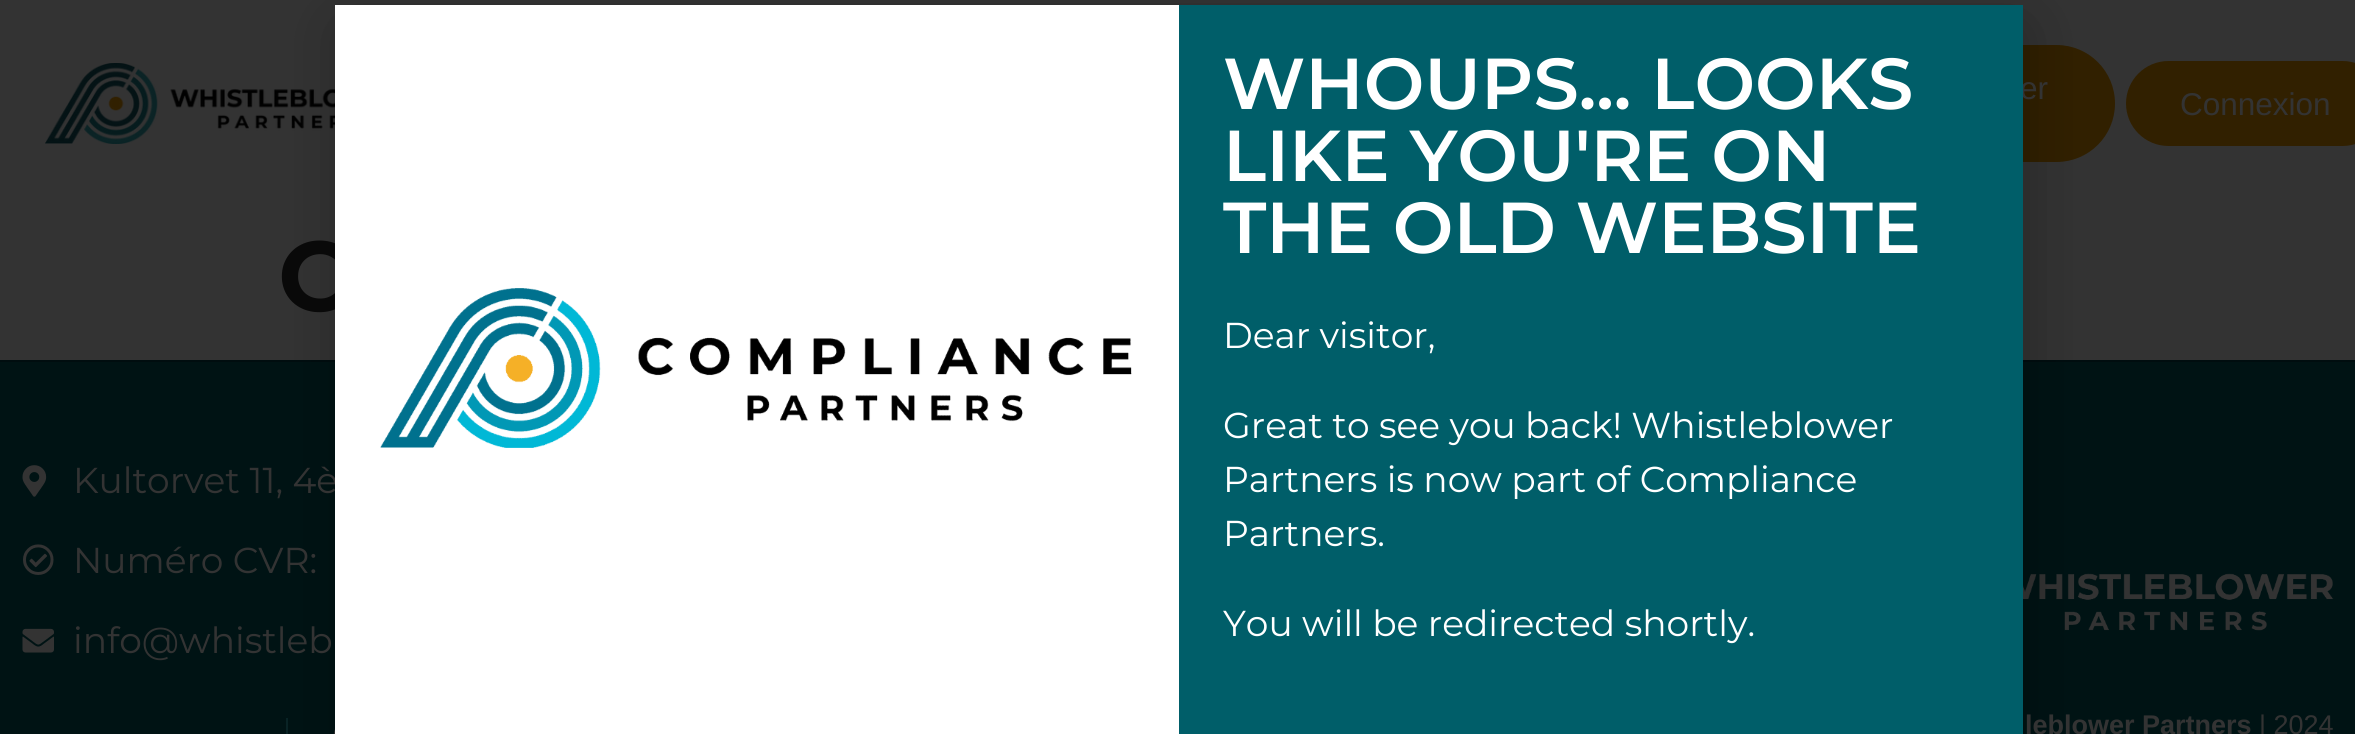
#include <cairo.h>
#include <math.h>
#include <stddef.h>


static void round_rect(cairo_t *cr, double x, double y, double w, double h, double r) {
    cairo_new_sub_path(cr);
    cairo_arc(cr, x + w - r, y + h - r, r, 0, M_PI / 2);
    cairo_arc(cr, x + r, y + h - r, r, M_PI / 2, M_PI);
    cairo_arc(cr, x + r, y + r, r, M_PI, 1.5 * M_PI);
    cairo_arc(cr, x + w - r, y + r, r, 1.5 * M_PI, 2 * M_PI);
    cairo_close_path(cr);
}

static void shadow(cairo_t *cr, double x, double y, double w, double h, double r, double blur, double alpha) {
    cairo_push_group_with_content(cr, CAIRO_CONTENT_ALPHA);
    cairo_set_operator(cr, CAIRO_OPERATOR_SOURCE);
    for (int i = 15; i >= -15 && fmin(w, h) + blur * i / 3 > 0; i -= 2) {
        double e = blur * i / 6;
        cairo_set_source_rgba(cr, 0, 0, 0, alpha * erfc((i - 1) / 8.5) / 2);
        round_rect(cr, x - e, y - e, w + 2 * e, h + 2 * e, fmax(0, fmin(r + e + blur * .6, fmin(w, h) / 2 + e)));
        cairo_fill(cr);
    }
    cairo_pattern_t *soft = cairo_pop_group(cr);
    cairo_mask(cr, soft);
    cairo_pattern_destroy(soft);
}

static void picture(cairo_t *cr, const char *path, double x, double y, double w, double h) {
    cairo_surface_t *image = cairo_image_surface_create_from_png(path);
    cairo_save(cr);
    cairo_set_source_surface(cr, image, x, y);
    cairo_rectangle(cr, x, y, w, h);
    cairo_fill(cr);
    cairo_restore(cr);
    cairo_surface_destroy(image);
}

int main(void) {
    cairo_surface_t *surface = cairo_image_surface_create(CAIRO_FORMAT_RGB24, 2355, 734);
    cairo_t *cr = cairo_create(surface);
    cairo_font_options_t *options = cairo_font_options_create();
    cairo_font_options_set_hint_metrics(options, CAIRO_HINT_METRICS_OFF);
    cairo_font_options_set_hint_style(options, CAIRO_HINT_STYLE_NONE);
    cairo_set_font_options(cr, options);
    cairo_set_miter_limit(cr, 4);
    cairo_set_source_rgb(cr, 0.2, 0.2, 0.2);
    cairo_paint(cr);
    picture(cr, "img2.png", 45, 63, 290, 81);
    cairo_set_source_rgb(cr, 0.192, 0.125, 0);
    round_rect(cr, 1807, 45, 308, 117, 58.5);
    cairo_fill(cr);
    cairo_set_source_rgb(cr, 0, 0.075, 0.082);
    cairo_rectangle(cr, 0, 362, 2355, 372);
    cairo_fill(cr);
    cairo_set_source_rgb(cr, 0, 0.051, 0.059);
    cairo_rectangle(cr, 0, 360, 2355, 2);
    cairo_fill(cr);
    cairo_set_source_rgb(cr, 0.039, 0.137, 0.145);
    cairo_rectangle(cr, 286, 718, 2, 16);
    cairo_fill(cr);
    picture(cr, "img6.png", 333, 729, 2, 5);
    picture(cr, "img7.png", 2023, 573, 311, 58);
    cairo_set_source_rgb(cr, 0, 0, 0);
    shadow(cr, 333, 16, 1701, 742, 16, 26, 0.2);
    cairo_select_font_face(cr, "Liberation Sans", CAIRO_FONT_SLANT_NORMAL, CAIRO_FONT_WEIGHT_NORMAL);
    cairo_set_font_size(cr, 31.5);
    cairo_set_source_rgb(cr, 0.2, 0.2, 0.2);
    cairo_move_to(cr, 2020, 99);
    cairo_show_text(cr, "er");
    cairo_set_source_rgb(cr, 0, 0.369, 0.412);
    cairo_rectangle(cr, 1179, 5, 844, 729);
    cairo_fill(cr);
    cairo_select_font_face(cr, "Montserrat", CAIRO_FONT_SLANT_NORMAL, CAIRO_FONT_WEIGHT_BOLD);
    cairo_set_font_size(cr, 99);
    cairo_set_source_rgb(cr, 0.039, 0.039, 0.039);
    cairo_move_to(cr, 278, 311);
    cairo_show_text(cr, "C");
    cairo_select_font_face(cr, "Montserrat", CAIRO_FONT_SLANT_NORMAL, CAIRO_FONT_WEIGHT_NORMAL);
    cairo_set_font_size(cr, 36);
    cairo_set_source_rgb(cr, 0.2, 0.2, 0.2);
    cairo_move_to(cr, 73, 493);
    cairo_show_text(cr, "Kultorvet 11, 4è");
    cairo_set_source_rgb(cr, 1, 1, 1);
    cairo_rectangle(cr, 335, 5, 844, 729);
    cairo_fill(cr);
    picture(cr, "img1.png", 380, 288, 752, 160);
    cairo_select_font_face(cr, "Montserrat SemiBold", CAIRO_FONT_SLANT_NORMAL, CAIRO_FONT_WEIGHT_NORMAL);
    cairo_set_font_size(cr, 72);
    cairo_move_to(cr, 1223, 109);
    cairo_show_text(cr, "WHOUPS... LOOKS");
    cairo_move_to(cr, 1223, 181);
    cairo_show_text(cr, "LIKE YOU'RE ON");
    cairo_move_to(cr, 1223, 253);
    cairo_show_text(cr, "THE OLD WEBSITE");
    cairo_select_font_face(cr, "Montserrat", CAIRO_FONT_SLANT_NORMAL, CAIRO_FONT_WEIGHT_NORMAL);
    cairo_set_font_size(cr, 36);
    cairo_move_to(cr, 1223, 348);
    cairo_show_text(cr, "Dear visitor,");
    cairo_move_to(cr, 1223, 438);
    cairo_show_text(cr, "Great to see you back! Whistleblower");
    cairo_move_to(cr, 1223, 492);
    cairo_show_text(cr, "Partners is now part of Compliance");
    cairo_move_to(cr, 1223, 546);
    cairo_show_text(cr, "Partners.");
    cairo_move_to(cr, 1223, 636);
    cairo_show_text(cr, "You will be redirected shortly.");
    cairo_set_source_rgb(cr, 0.192, 0.125, 0);
    round_rect(cr, 2126, 61, 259, 85, 42.5);
    cairo_fill(cr);
    cairo_select_font_face(cr, "Liberation Sans", CAIRO_FONT_SLANT_NORMAL, CAIRO_FONT_WEIGHT_NORMAL);
    cairo_set_font_size(cr, 31.5);
    cairo_set_source_rgb(cr, 0.2, 0.2, 0.2);
    cairo_move_to(cr, 2180, 115);
    cairo_show_text(cr, "Connexion");
    picture(cr, "img3.png", 22, 465, 25, 32);
    picture(cr, "img4.png", 23, 544, 31, 31);
    cairo_select_font_face(cr, "Montserrat", CAIRO_FONT_SLANT_NORMAL, CAIRO_FONT_WEIGHT_NORMAL);
    cairo_set_font_size(cr, 36);
    cairo_move_to(cr, 73, 573);
    cairo_show_text(cr, "Numéro CVR:");
    picture(cr, "img5.png", 22, 628, 32, 25);
    cairo_move_to(cr, 73, 653);
    cairo_show_text(cr, "info@whistleb");
    cairo_select_font_face(cr, "Liberation Sans", CAIRO_FONT_SLANT_NORMAL, CAIRO_FONT_WEIGHT_BOLD);
    cairo_set_font_size(cr, 27);
    cairo_move_to(cr, 2025, 734);
    cairo_show_text(cr, "leblower Partners");
    cairo_select_font_face(cr, "Liberation Sans", CAIRO_FONT_SLANT_NORMAL, CAIRO_FONT_WEIGHT_NORMAL);
    cairo_move_to(cr, 2259, 734);
    cairo_show_text(cr, "| 2024");
    cairo_surface_write_to_png(surface, "page.png");
    cairo_font_options_destroy(options);
    cairo_destroy(cr);
    cairo_surface_destroy(surface);
    return 0;
}
